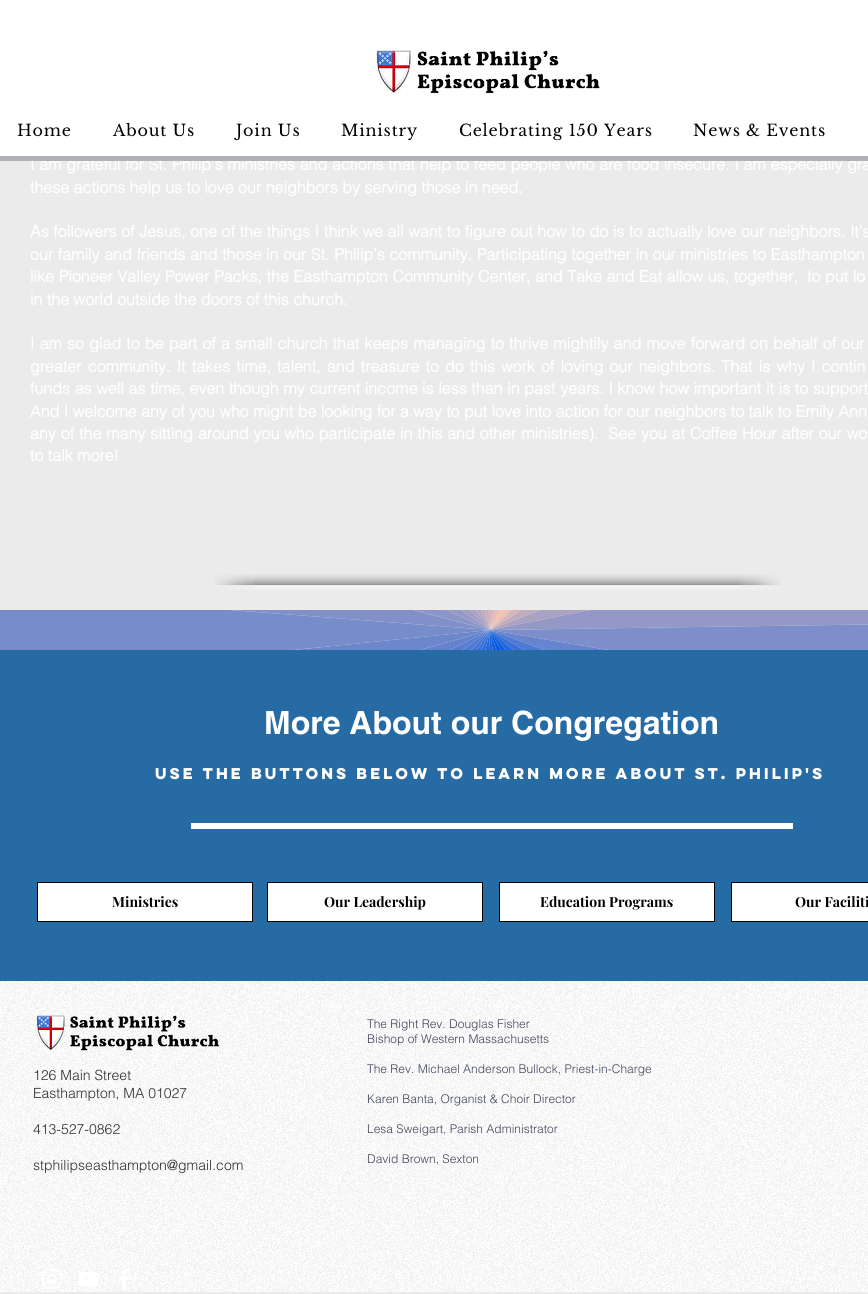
#include <cairo.h>
#include <math.h>
#include <stddef.h>


static void spaced_text(cairo_t *cr, double x, double y, const char *s, double letter, double word) {
    cairo_move_to(cr, x, y);
    while (*s) {
        char ch[5] = {0};
        int n = 0;
        do ch[n++] = *s++; while ((*s & 0xC0) == 0x80);
        cairo_show_text(cr, ch);
        cairo_rel_move_to(cr, letter + word * (*ch == ' '), 0);
    }
}

static void picture(cairo_t *cr, const char *path, double x, double y, double w, double h) {
    cairo_surface_t *image = cairo_image_surface_create_from_png(path);
    cairo_save(cr);
    cairo_set_source_surface(cr, image, x, y);
    cairo_rectangle(cr, x, y, w, h);
    cairo_fill(cr);
    cairo_restore(cr);
    cairo_surface_destroy(image);
}

int main(void) {
    cairo_surface_t *surface = cairo_image_surface_create(CAIRO_FORMAT_RGB24, 868, 1294);
    cairo_t *cr = cairo_create(surface);
    cairo_font_options_t *options = cairo_font_options_create();
    cairo_font_options_set_hint_metrics(options, CAIRO_HINT_METRICS_OFF);
    cairo_font_options_set_hint_style(options, CAIRO_HINT_STYLE_NONE);
    cairo_set_font_options(cr, options);
    cairo_set_miter_limit(cr, 4);
    cairo_set_source_rgb(cr, 0.918, 0.918, 0.918);
    cairo_paint(cr);
    cairo_set_source_rgb(cr, 1, 1, 1);
    cairo_rectangle(cr, 0, 0, 868, 156);
    cairo_fill(cr);
    cairo_select_font_face(cr, "helvetica", CAIRO_FONT_SLANT_NORMAL, CAIRO_FONT_WEIGHT_BOLD);
    cairo_set_font_size(cr, 16);
    spaced_text(cr, 30, 170, "I am grateful for St. Philip’s ministries and actions that help to feed people who are food insecure. I am especially gra", 0, 0.3);
    cairo_set_source_rgb(cr, 0.69, 0.698, 0.722);
    cairo_rectangle(cr, 0, 156, 868, 5);
    cairo_fill(cr);
    picture(cr, "img1.png", 375, 49, 226, 45);
    cairo_select_font_face(cr, "Libre Baskerville", CAIRO_FONT_SLANT_NORMAL, CAIRO_FONT_WEIGHT_NORMAL);
    cairo_set_source_rgb(cr, 0, 0, 0);
    spaced_text(cr, 17, 136, "Home", 0.8, 0);
    spaced_text(cr, 113, 136, "About Us", 0.8, 0);
    spaced_text(cr, 236, 136, "Join Us", 0.8, 0);
    spaced_text(cr, 341, 136, "Ministry", 0.8, 0);
    spaced_text(cr, 459, 136, "Celebrating 150 Years", 0.8, 0);
    spaced_text(cr, 693, 136, "News & Events", 0.8, 0);
    cairo_select_font_face(cr, "helvetica", CAIRO_FONT_SLANT_NORMAL, CAIRO_FONT_WEIGHT_BOLD);
    cairo_set_source_rgb(cr, 1, 1, 1);
    cairo_move_to(cr, 30, 193);
    cairo_show_text(cr, "these actions help us to love our neighbors by serving those in need.");
    spaced_text(cr, 30, 237, "As followers of Jesus, one of the things I think we all want to figure out how to do is to actually love our neighbors. It’s", 0, 0.25);
    spaced_text(cr, 30, 260, "our family and friends and those in our St. Philip’s community. Participating together in our ministries to Easthampton", 0, 0.2);
    spaced_text(cr, 30, 282, "like Pioneer Valley Power Packs, the Easthampton Community Center, and Take and Eat allow us, together,  to put lo", 0, 0.2);
    cairo_move_to(cr, 30, 305);
    cairo_show_text(cr, "in the world outside the doors of this church.");
    spaced_text(cr, 30, 349, "I am so glad to be part of a small church that keeps managing to thrive mightily and move forward on behalf of our", 0, 0.75);
    spaced_text(cr, 30, 372, "greater community. It takes time, talent, and treasure to do this work of loving our neighbors. That is why I contin", 0, 1.75);
    spaced_text(cr, 30, 394, "funds as well as time, even though my current income is less than in past years. I know how important it is to support", 0, 0.25);
    cairo_move_to(cr, 30, 417);
    cairo_show_text(cr, "And I welcome any of you who might be looking for a way to put love into action for our neighbors to talk to Emily Ann");
    spaced_text(cr, 30, 439, "any of the many sitting around you who participate in this and other ministries).  See you at Coffee Hour after our wo", 0, 0.5);
    cairo_move_to(cr, 30, 461);
    cairo_show_text(cr, "to talk more!");
    picture(cr, "img2.png", 255, 574, 485, 16);
    picture(cr, "img3.png", 213, 574, 42, 16);
    picture(cr, "img4.png", 740, 574, 42, 16);
    picture(cr, "img5.png", 0, 610, 868, 40);
    cairo_set_source_rgb(cr, 0.153, 0.42, 0.647);
    cairo_rectangle(cr, 0, 650, 868, 331);
    cairo_fill(cr);
    cairo_select_font_face(cr, "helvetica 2", CAIRO_FONT_SLANT_NORMAL, CAIRO_FONT_WEIGHT_BOLD);
    cairo_set_font_size(cr, 32);
    cairo_set_source_rgb(cr, 1, 1, 1);
    cairo_move_to(cr, 264, 734);
    cairo_show_text(cr, "More About our Congregation");
    cairo_select_font_face(cr, "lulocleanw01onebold", CAIRO_FONT_SLANT_NORMAL, CAIRO_FONT_WEIGHT_BOLD);
    cairo_set_font_size(cr, 14);
    cairo_move_to(cr, 155, 779);
    cairo_show_text(cr, "USE THE BUTTONS BELOW TO LEARN MORE ABOUT ST. PHILIP'S");
    cairo_rectangle(cr, 191, 823, 602, 6);
    cairo_fill(cr);
    cairo_rectangle(cr, 37.5, 882.5, 215, 39);
    cairo_fill_preserve(cr);
    cairo_set_source_rgb(cr, 0, 0, 0);
    cairo_set_line_width(cr, 1);
    cairo_stroke(cr);
    cairo_select_font_face(cr, "Playfair Display", CAIRO_FONT_SLANT_NORMAL, CAIRO_FONT_WEIGHT_BOLD);
    cairo_move_to(cr, 112, 907);
    cairo_show_text(cr, "Ministries");
    cairo_set_source_rgb(cr, 1, 1, 1);
    cairo_rectangle(cr, 267.5, 882.5, 215, 39);
    cairo_fill_preserve(cr);
    cairo_set_source_rgb(cr, 0, 0, 0);
    cairo_stroke(cr);
    cairo_move_to(cr, 324, 907);
    cairo_show_text(cr, "Our Leadership");
    cairo_set_source_rgb(cr, 1, 1, 1);
    cairo_rectangle(cr, 499.5, 882.5, 215, 39);
    cairo_fill_preserve(cr);
    cairo_set_source_rgb(cr, 0, 0, 0);
    cairo_stroke(cr);
    cairo_move_to(cr, 540, 907);
    cairo_show_text(cr, "Education Programs");
    cairo_set_source_rgb(cr, 1, 1, 1);
    cairo_rectangle(cr, 731.5, 882.5, 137, 39);
    cairo_fill_preserve(cr);
    cairo_set_source_rgb(cr, 0, 0, 0);
    cairo_stroke(cr);
    cairo_move_to(cr, 795, 907);
    cairo_show_text(cr, "Our Faciliti");
    cairo_set_source_rgb(cr, 1, 1, 1);
    cairo_rectangle(cr, 0, 981, 868, 311);
    cairo_fill(cr);
    picture(cr, "img6.png", 0, 981, 868, 311);
    picture(cr, "img7.png", 36, 1015, 183, 36);
    cairo_select_font_face(cr, "helvetica Light", CAIRO_FONT_SLANT_NORMAL, CAIRO_FONT_WEIGHT_NORMAL);
    cairo_set_font_size(cr, 12);
    cairo_set_source_rgb(cr, 0.247, 0.263, 0.349);
    cairo_move_to(cr, 367, 1028);
    cairo_show_text(cr, "The Right Rev. Douglas Fisher");
    cairo_move_to(cr, 367, 1043);
    cairo_show_text(cr, "Bishop of Western Massachusetts");
    cairo_move_to(cr, 367, 1073);
    cairo_show_text(cr, "The Rev. Michael Anderson Bullock, Priest-in-Charge");
    cairo_move_to(cr, 367, 1103);
    cairo_show_text(cr, "Karen Banta, Organist & Choir Director");
    cairo_move_to(cr, 367, 1133);
    cairo_show_text(cr, "Lesa Sweigart, Parish Administrator");
    cairo_move_to(cr, 367, 1163);
    cairo_show_text(cr, "David Brown, Sexton");
    cairo_set_font_size(cr, 14);
    cairo_set_source_rgb(cr, 0.173, 0.176, 0.18);
    cairo_move_to(cr, 33, 1080);
    cairo_show_text(cr, "126 Main Street");
    cairo_move_to(cr, 33, 1098);
    cairo_show_text(cr, "Easthampton, MA 01027");
    cairo_move_to(cr, 33, 1134);
    cairo_show_text(cr, "413-527-0862");
    cairo_move_to(cr, 33, 1170);
    cairo_show_text(cr, "stphilipseasthampton@gmail.com");
    picture(cr, "img8.png", 42, 1269, 20, 20);
    picture(cr, "img9.png", 77, 1272, 22, 15);
    picture(cr, "img10.png", 119, 1269, 10, 20);
    cairo_surface_write_to_png(surface, "page.png");
    cairo_font_options_destroy(options);
    cairo_destroy(cr);
    cairo_surface_destroy(surface);
    return 0;
}
